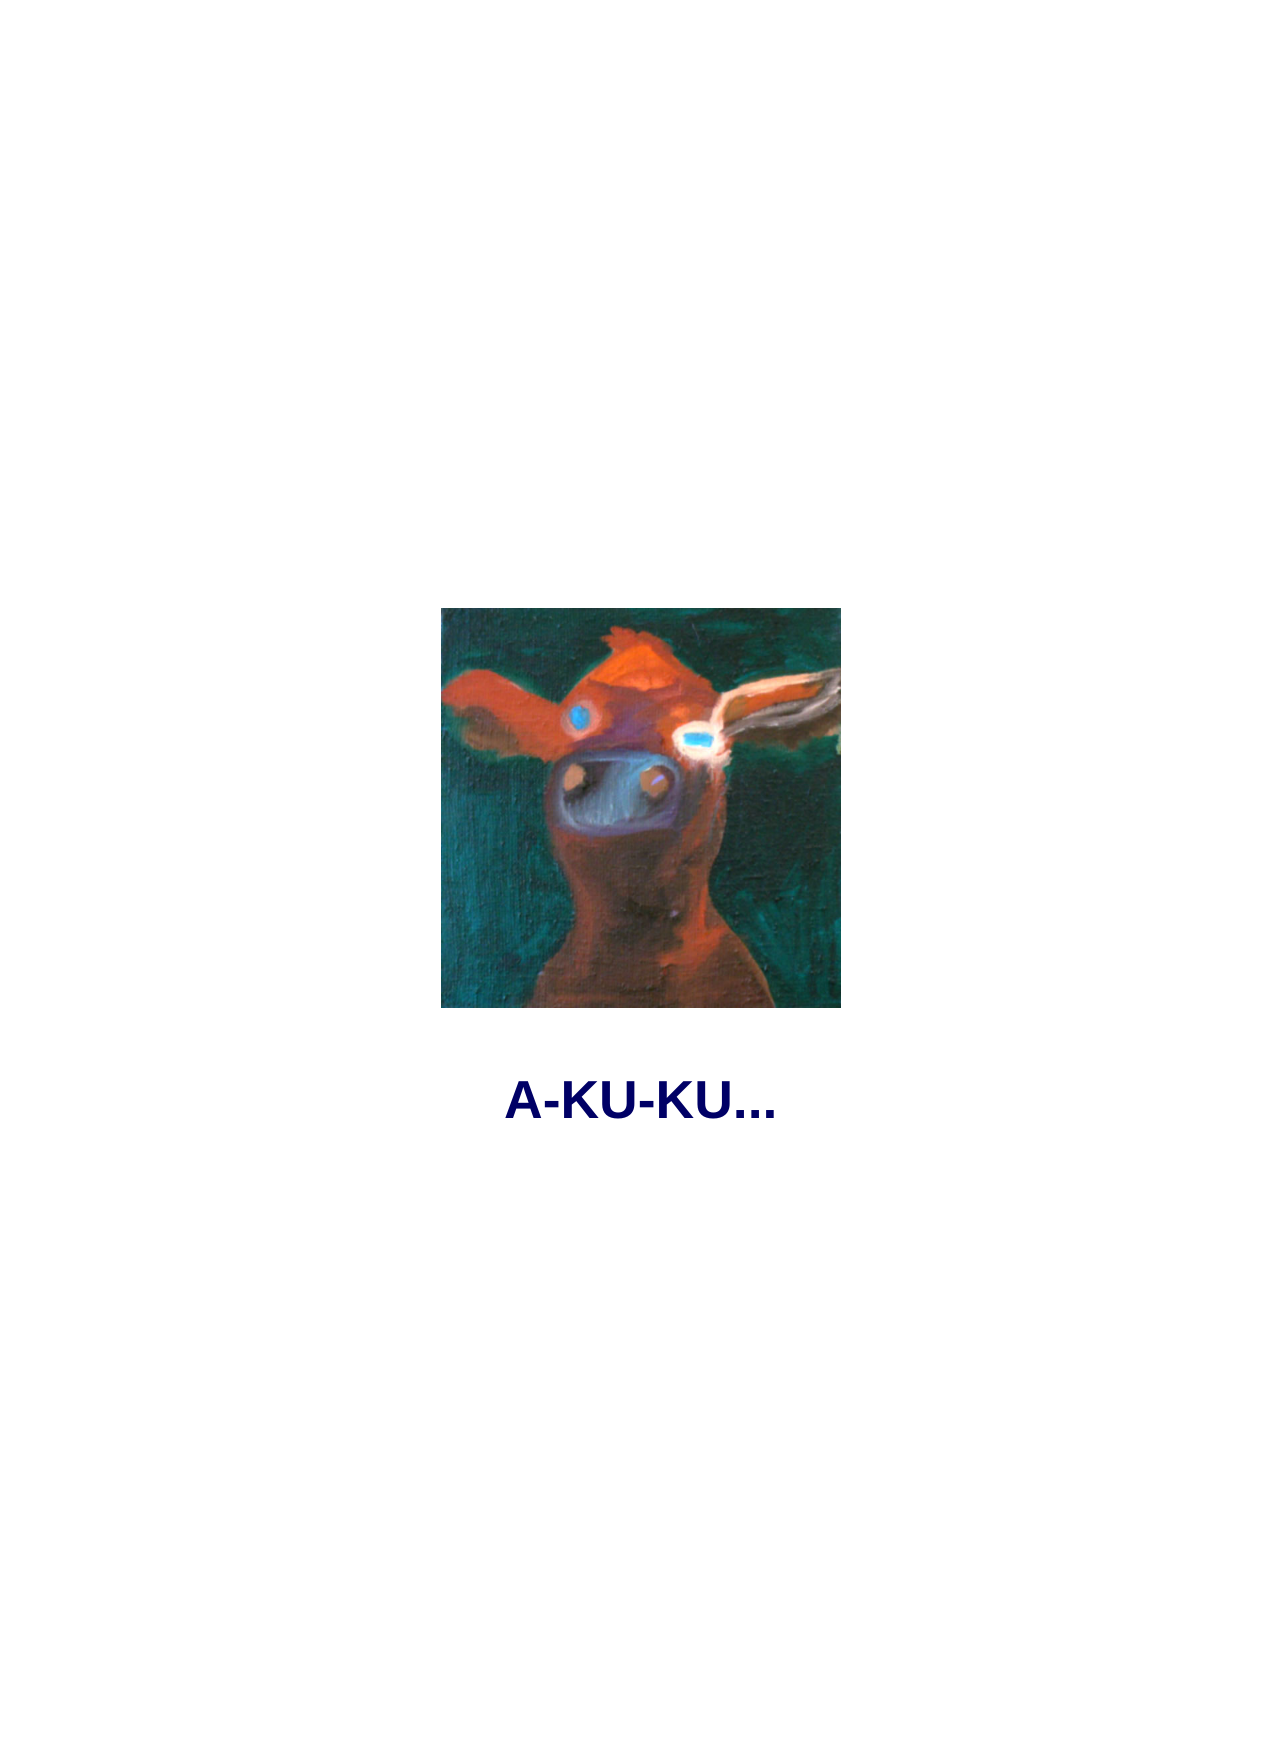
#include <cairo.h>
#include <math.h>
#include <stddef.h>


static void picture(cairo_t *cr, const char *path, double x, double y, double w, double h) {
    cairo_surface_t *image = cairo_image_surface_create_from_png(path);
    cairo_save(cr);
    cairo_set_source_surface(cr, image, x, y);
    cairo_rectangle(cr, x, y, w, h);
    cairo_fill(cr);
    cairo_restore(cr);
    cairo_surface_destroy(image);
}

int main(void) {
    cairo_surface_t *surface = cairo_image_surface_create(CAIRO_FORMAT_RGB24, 1281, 1737);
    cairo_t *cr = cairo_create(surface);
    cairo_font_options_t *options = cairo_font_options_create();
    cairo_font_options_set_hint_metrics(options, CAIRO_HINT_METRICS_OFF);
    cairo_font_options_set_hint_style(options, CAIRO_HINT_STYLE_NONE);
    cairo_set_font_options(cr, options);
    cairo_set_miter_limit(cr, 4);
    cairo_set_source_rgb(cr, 1, 1, 1);
    cairo_paint(cr);
    picture(cr, "img1.png", 441, 608, 400, 400);
    cairo_select_font_face(cr, "Liberation Sans", CAIRO_FONT_SLANT_NORMAL, CAIRO_FONT_WEIGHT_BOLD);
    cairo_set_font_size(cr, 53.5);
    cairo_set_source_rgb(cr, 0, 0, 0.4);
    cairo_move_to(cr, 504, 1118);
    cairo_show_text(cr, "A-KU-KU...");
    cairo_surface_write_to_png(surface, "page.png");
    cairo_font_options_destroy(options);
    cairo_destroy(cr);
    cairo_surface_destroy(surface);
    return 0;
}
